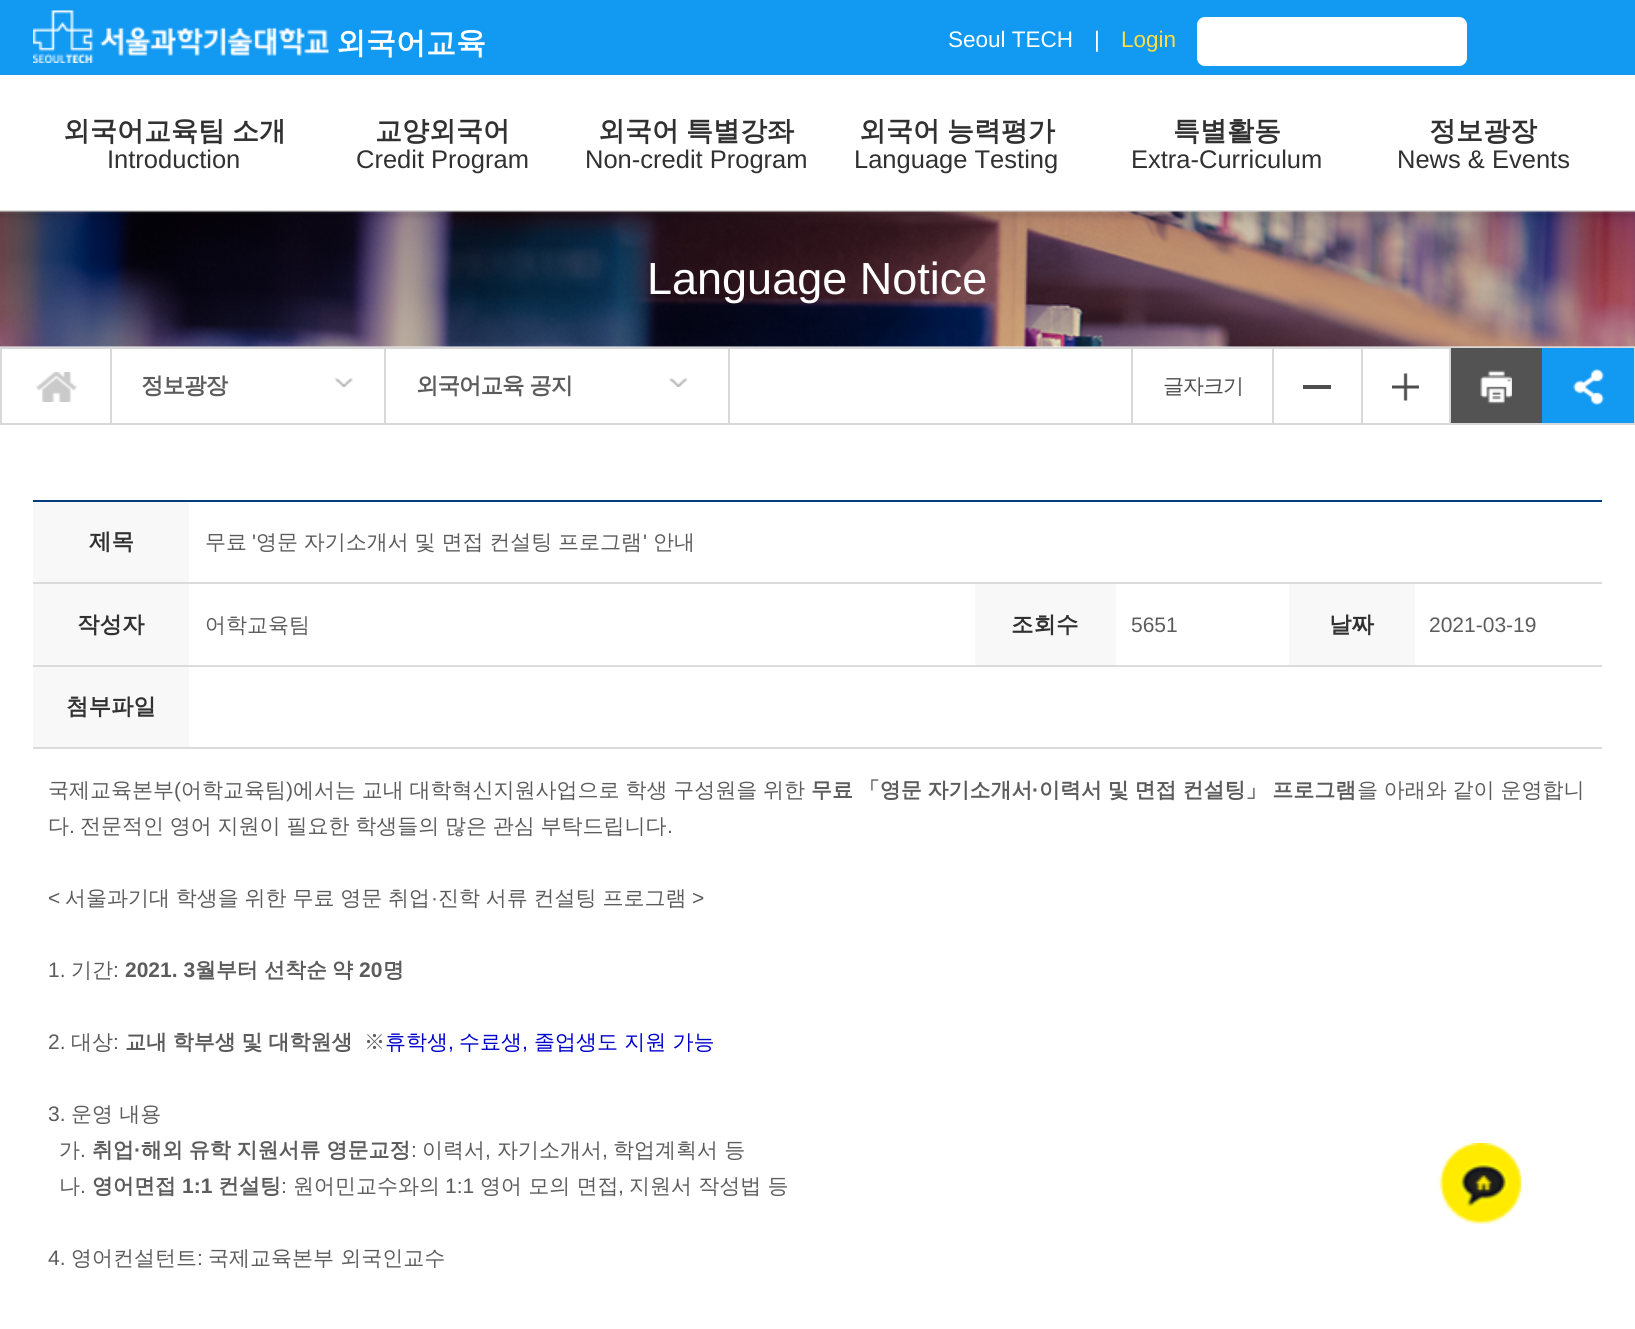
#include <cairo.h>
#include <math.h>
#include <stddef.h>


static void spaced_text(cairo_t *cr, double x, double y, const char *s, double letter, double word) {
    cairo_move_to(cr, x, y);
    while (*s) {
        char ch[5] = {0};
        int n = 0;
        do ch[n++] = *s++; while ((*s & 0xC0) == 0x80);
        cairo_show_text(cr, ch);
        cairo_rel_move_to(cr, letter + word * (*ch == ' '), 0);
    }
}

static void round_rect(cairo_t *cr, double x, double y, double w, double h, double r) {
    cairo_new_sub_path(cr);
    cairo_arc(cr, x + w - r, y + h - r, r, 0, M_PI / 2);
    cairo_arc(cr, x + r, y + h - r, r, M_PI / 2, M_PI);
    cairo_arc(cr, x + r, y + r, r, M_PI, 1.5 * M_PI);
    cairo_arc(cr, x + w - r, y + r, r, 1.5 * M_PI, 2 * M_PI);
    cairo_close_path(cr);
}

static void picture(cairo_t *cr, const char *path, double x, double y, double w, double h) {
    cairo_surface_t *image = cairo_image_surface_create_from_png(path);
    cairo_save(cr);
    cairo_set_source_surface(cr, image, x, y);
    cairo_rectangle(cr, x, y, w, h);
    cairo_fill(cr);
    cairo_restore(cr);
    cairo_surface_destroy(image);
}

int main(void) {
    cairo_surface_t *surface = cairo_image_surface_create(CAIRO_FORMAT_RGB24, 1635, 1329);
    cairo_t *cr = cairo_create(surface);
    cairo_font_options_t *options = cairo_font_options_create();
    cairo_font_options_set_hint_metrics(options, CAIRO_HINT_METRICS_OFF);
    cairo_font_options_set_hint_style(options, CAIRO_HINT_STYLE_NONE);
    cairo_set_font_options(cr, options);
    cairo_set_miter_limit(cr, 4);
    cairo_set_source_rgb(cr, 1, 1, 1);
    cairo_paint(cr);
    cairo_set_source_rgb(cr, 0.071, 0.604, 0.953);
    cairo_rectangle(cr, 0, 0, 1635, 75);
    cairo_fill(cr);
    cairo_set_source_rgb(cr, 0.863, 0.863, 0.847);
    cairo_rectangle(cr, 0, 210, 1635, 2);
    cairo_fill(cr);
    picture(cr, "img1.png", 33, 10, 296, 53);
    cairo_select_font_face(cr, "WenQuanYi Zen Hei", CAIRO_FONT_SLANT_NORMAL, CAIRO_FONT_WEIGHT_BOLD);
    cairo_set_font_size(cr, 30);
    cairo_set_source_rgb(cr, 1, 1, 1);
    cairo_move_to(cr, 336, 53);
    cairo_show_text(cr, "외국어교육");
    cairo_select_font_face(cr, "Liberation Sans", CAIRO_FONT_SLANT_NORMAL, CAIRO_FONT_WEIGHT_NORMAL);
    cairo_set_font_size(cr, 22.5);
    cairo_move_to(cr, 948, 47);
    cairo_show_text(cr, "Seoul TECH");
    cairo_move_to(cr, 1094, 47);
    cairo_show_text(cr, "|");
    cairo_set_source_rgb(cr, 1, 0.871, 0.243);
    cairo_move_to(cr, 1121, 47);
    cairo_show_text(cr, "Login");
    cairo_set_source_rgb(cr, 1, 1, 1);
    round_rect(cr, 1197, 17, 270, 49, 8);
    cairo_fill(cr);
    cairo_select_font_face(cr, "WenQuanYi Zen Hei", CAIRO_FONT_SLANT_NORMAL, CAIRO_FONT_WEIGHT_BOLD);
    cairo_set_font_size(cr, 27);
    cairo_set_source_rgb(cr, 0.192, 0.192, 0.192);
    spaced_text(cr, 63, 140, "외국어교육팀 소개", 0, -1);
    cairo_select_font_face(cr, "Liberation Sans", CAIRO_FONT_SLANT_NORMAL, CAIRO_FONT_WEIGHT_NORMAL);
    cairo_set_font_size(cr, 25.5);
    cairo_move_to(cr, 107, 168);
    cairo_show_text(cr, "Introduction");
    cairo_select_font_face(cr, "WenQuanYi Zen Hei", CAIRO_FONT_SLANT_NORMAL, CAIRO_FONT_WEIGHT_BOLD);
    cairo_set_font_size(cr, 27);
    cairo_move_to(cr, 375, 140);
    cairo_show_text(cr, "교양외국어");
    cairo_select_font_face(cr, "Liberation Sans", CAIRO_FONT_SLANT_NORMAL, CAIRO_FONT_WEIGHT_NORMAL);
    cairo_set_font_size(cr, 25.5);
    cairo_move_to(cr, 356, 168);
    cairo_show_text(cr, "Credit Program");
    cairo_select_font_face(cr, "WenQuanYi Zen Hei", CAIRO_FONT_SLANT_NORMAL, CAIRO_FONT_WEIGHT_BOLD);
    cairo_set_font_size(cr, 27);
    spaced_text(cr, 598, 140, "외국어 특별강좌", 0, -1);
    cairo_select_font_face(cr, "Liberation Sans", CAIRO_FONT_SLANT_NORMAL, CAIRO_FONT_WEIGHT_NORMAL);
    cairo_set_font_size(cr, 25.5);
    cairo_move_to(cr, 585, 168);
    cairo_show_text(cr, "Non-credit Program");
    cairo_select_font_face(cr, "WenQuanYi Zen Hei", CAIRO_FONT_SLANT_NORMAL, CAIRO_FONT_WEIGHT_BOLD);
    cairo_set_font_size(cr, 27);
    spaced_text(cr, 859, 140, "외국어 능력평가", 0, -1);
    cairo_select_font_face(cr, "Liberation Sans", CAIRO_FONT_SLANT_NORMAL, CAIRO_FONT_WEIGHT_NORMAL);
    cairo_set_font_size(cr, 25.5);
    cairo_move_to(cr, 854, 168);
    cairo_show_text(cr, "Language Testing");
    cairo_select_font_face(cr, "WenQuanYi Zen Hei", CAIRO_FONT_SLANT_NORMAL, CAIRO_FONT_WEIGHT_BOLD);
    cairo_set_font_size(cr, 27);
    cairo_move_to(cr, 1173, 140);
    cairo_show_text(cr, "특별활동");
    cairo_select_font_face(cr, "Liberation Sans", CAIRO_FONT_SLANT_NORMAL, CAIRO_FONT_WEIGHT_NORMAL);
    cairo_set_font_size(cr, 25.5);
    cairo_move_to(cr, 1131, 168);
    cairo_show_text(cr, "Extra-Curriculum");
    cairo_select_font_face(cr, "WenQuanYi Zen Hei", CAIRO_FONT_SLANT_NORMAL, CAIRO_FONT_WEIGHT_BOLD);
    cairo_set_font_size(cr, 27);
    cairo_move_to(cr, 1429, 140);
    cairo_show_text(cr, "정보광장");
    cairo_select_font_face(cr, "Liberation Sans", CAIRO_FONT_SLANT_NORMAL, CAIRO_FONT_WEIGHT_NORMAL);
    cairo_set_font_size(cr, 25.5);
    cairo_move_to(cr, 1397, 168);
    cairo_show_text(cr, "News & Events");
    picture(cr, "img2.png", 0, 211, 1635, 136);
    cairo_set_font_size(cr, 45);
    cairo_set_source_rgb(cr, 1, 1, 1);
    cairo_move_to(cr, 647, 294);
    cairo_show_text(cr, "Language Notice");
    cairo_set_source_rgb(cr, 0.847, 0.847, 0.847);
    cairo_rectangle(cr, 0, 347, 1635, 2);
    cairo_fill(cr);
    cairo_rectangle(cr, 0, 423, 1635, 2);
    cairo_fill(cr);
    cairo_rectangle(cr, 110, 348, 2, 75);
    cairo_fill(cr);
    cairo_rectangle(cr, 0, 348, 2, 75);
    cairo_fill(cr);
    picture(cr, "img3.png", 36, 372, 41, 30);
    picture(cr, "img4.png", 334, 378, 19, 9);
    cairo_rectangle(cr, 384, 348, 2, 75);
    cairo_fill(cr);
    cairo_select_font_face(cr, "WenQuanYi Zen Hei", CAIRO_FONT_SLANT_NORMAL, CAIRO_FONT_WEIGHT_BOLD);
    cairo_set_font_size(cr, 22.5);
    cairo_set_source_rgb(cr, 0.361, 0.361, 0.361);
    spaced_text(cr, 141, 393, "정보광장", -1, 0);
    picture(cr, "img5.png", 669, 378, 19, 9);
    cairo_set_source_rgb(cr, 0.847, 0.847, 0.847);
    cairo_rectangle(cr, 728, 348, 2, 75);
    cairo_fill(cr);
    cairo_set_source_rgb(cr, 0.361, 0.361, 0.361);
    spaced_text(cr, 416, 393, "외국어교육 공지", -1, 0);
    cairo_set_source_rgb(cr, 0.847, 0.847, 0.847);
    cairo_rectangle(cr, 1634, 348, 1, 75);
    cairo_fill(cr);
    cairo_rectangle(cr, 1131, 348, 2, 75);
    cairo_fill(cr);
    cairo_select_font_face(cr, "WenQuanYi Zen Hei Medium", CAIRO_FONT_SLANT_NORMAL, CAIRO_FONT_WEIGHT_NORMAL);
    cairo_set_font_size(cr, 21);
    cairo_set_source_rgb(cr, 0.306, 0.306, 0.306);
    spaced_text(cr, 1163, 393, "글자크기", -1, 0);
    cairo_set_source_rgb(cr, 0.847, 0.847, 0.847);
    cairo_rectangle(cr, 1272, 348, 2, 75);
    cairo_fill(cr);
    cairo_set_source_rgb(cr, 0.306, 0.306, 0.306);
    cairo_rectangle(cr, 1303, 385, 28, 4);
    cairo_fill(cr);
    cairo_set_source_rgb(cr, 0.847, 0.847, 0.847);
    cairo_rectangle(cr, 1361, 348, 2, 75);
    cairo_fill(cr);
    picture(cr, "img6.png", 1392, 373, 27, 28);
    cairo_set_source_rgb(cr, 0.325, 0.325, 0.325);
    cairo_rectangle(cr, 1451, 348, 91, 75);
    cairo_fill(cr);
    cairo_set_source_rgb(cr, 0.847, 0.847, 0.847);
    cairo_rectangle(cr, 1449, 348, 2, 75);
    cairo_fill(cr);
    picture(cr, "img7.png", 1480, 370, 32, 34);
    cairo_set_source_rgb(cr, 0.071, 0.604, 0.953);
    cairo_rectangle(cr, 1542, 348, 92, 75);
    cairo_fill(cr);
    picture(cr, "img8.png", 1573, 369, 31, 36);
    cairo_set_source_rgb(cr, 0, 0.243, 0.494);
    cairo_rectangle(cr, 33, 500, 1569, 2);
    cairo_fill(cr);
    cairo_set_source_rgb(cr, 0.969, 0.969, 0.969);
    cairo_rectangle(cr, 33, 502, 156, 80);
    cairo_fill(cr);
    cairo_select_font_face(cr, "WenQuanYi Zen Hei", CAIRO_FONT_SLANT_NORMAL, CAIRO_FONT_WEIGHT_BOLD);
    cairo_set_font_size(cr, 22.5);
    cairo_set_source_rgb(cr, 0.192, 0.192, 0.192);
    cairo_move_to(cr, 89, 549);
    cairo_show_text(cr, "제목");
    cairo_set_source_rgb(cr, 0.859, 0.859, 0.859);
    cairo_rectangle(cr, 33, 582, 1569, 2);
    cairo_fill(cr);
    cairo_select_font_face(cr, "WenQuanYi Zen Hei Medium", CAIRO_FONT_SLANT_NORMAL, CAIRO_FONT_WEIGHT_NORMAL);
    cairo_set_font_size(cr, 21);
    cairo_set_source_rgb(cr, 0.361, 0.361, 0.361);
    cairo_move_to(cr, 205, 549);
    cairo_show_text(cr, "무료");
    cairo_select_font_face(cr, "Liberation Sans", CAIRO_FONT_SLANT_NORMAL, CAIRO_FONT_WEIGHT_NORMAL);
    cairo_move_to(cr, 252, 549);
    cairo_show_text(cr, "'");
    cairo_select_font_face(cr, "WenQuanYi Zen Hei Medium", CAIRO_FONT_SLANT_NORMAL, CAIRO_FONT_WEIGHT_NORMAL);
    spaced_text(cr, 256, 549, "영문 자기소개서 및 면접 컨설팅 프로그램", 0, -0.5);
    cairo_select_font_face(cr, "Liberation Sans", CAIRO_FONT_SLANT_NORMAL, CAIRO_FONT_WEIGHT_NORMAL);
    cairo_move_to(cr, 643, 549);
    cairo_show_text(cr, "'");
    cairo_select_font_face(cr, "WenQuanYi Zen Hei Medium", CAIRO_FONT_SLANT_NORMAL, CAIRO_FONT_WEIGHT_NORMAL);
    cairo_move_to(cr, 653, 549);
    cairo_show_text(cr, "안내");
    cairo_set_source_rgb(cr, 0.969, 0.969, 0.969);
    cairo_rectangle(cr, 33, 584, 156, 81);
    cairo_fill(cr);
    cairo_select_font_face(cr, "WenQuanYi Zen Hei", CAIRO_FONT_SLANT_NORMAL, CAIRO_FONT_WEIGHT_BOLD);
    cairo_set_font_size(cr, 22.5);
    cairo_set_source_rgb(cr, 0.192, 0.192, 0.192);
    cairo_move_to(cr, 77, 632);
    cairo_show_text(cr, "작성자");
    cairo_select_font_face(cr, "WenQuanYi Zen Hei Medium", CAIRO_FONT_SLANT_NORMAL, CAIRO_FONT_WEIGHT_NORMAL);
    cairo_set_font_size(cr, 21);
    cairo_set_source_rgb(cr, 0.361, 0.361, 0.361);
    cairo_move_to(cr, 205, 632);
    cairo_show_text(cr, "어학교육팀");
    cairo_set_source_rgb(cr, 0.969, 0.969, 0.969);
    cairo_rectangle(cr, 975, 584, 141, 81);
    cairo_fill(cr);
    cairo_select_font_face(cr, "WenQuanYi Zen Hei", CAIRO_FONT_SLANT_NORMAL, CAIRO_FONT_WEIGHT_BOLD);
    cairo_set_font_size(cr, 22.5);
    cairo_set_source_rgb(cr, 0.192, 0.192, 0.192);
    cairo_move_to(cr, 1011, 632);
    cairo_show_text(cr, "조회수");
    cairo_select_font_face(cr, "Liberation Sans", CAIRO_FONT_SLANT_NORMAL, CAIRO_FONT_WEIGHT_NORMAL);
    cairo_set_font_size(cr, 21);
    cairo_set_source_rgb(cr, 0.361, 0.361, 0.361);
    cairo_move_to(cr, 1131, 632);
    cairo_show_text(cr, "5651");
    cairo_set_source_rgb(cr, 0.969, 0.969, 0.969);
    cairo_rectangle(cr, 1289, 584, 126, 81);
    cairo_fill(cr);
    cairo_select_font_face(cr, "WenQuanYi Zen Hei", CAIRO_FONT_SLANT_NORMAL, CAIRO_FONT_WEIGHT_BOLD);
    cairo_set_font_size(cr, 22.5);
    cairo_set_source_rgb(cr, 0.192, 0.192, 0.192);
    cairo_move_to(cr, 1329, 632);
    cairo_show_text(cr, "날짜");
    cairo_set_source_rgb(cr, 0.859, 0.859, 0.859);
    cairo_rectangle(cr, 33, 665, 1569, 2);
    cairo_fill(cr);
    cairo_select_font_face(cr, "Liberation Sans", CAIRO_FONT_SLANT_NORMAL, CAIRO_FONT_WEIGHT_NORMAL);
    cairo_set_font_size(cr, 21);
    cairo_set_source_rgb(cr, 0.361, 0.361, 0.361);
    cairo_move_to(cr, 1429, 632);
    cairo_show_text(cr, "2021-03-19");
    cairo_set_source_rgb(cr, 0.969, 0.969, 0.969);
    cairo_rectangle(cr, 33, 667, 156, 80);
    cairo_fill(cr);
    cairo_select_font_face(cr, "WenQuanYi Zen Hei", CAIRO_FONT_SLANT_NORMAL, CAIRO_FONT_WEIGHT_BOLD);
    cairo_set_font_size(cr, 22.5);
    cairo_set_source_rgb(cr, 0.192, 0.192, 0.192);
    cairo_move_to(cr, 66, 714);
    cairo_show_text(cr, "첨부파일");
    cairo_set_source_rgb(cr, 0.859, 0.859, 0.859);
    cairo_rectangle(cr, 33, 747, 1569, 2);
    cairo_fill(cr);
    cairo_select_font_face(cr, "WenQuanYi Zen Hei Medium", CAIRO_FONT_SLANT_NORMAL, CAIRO_FONT_WEIGHT_NORMAL);
    cairo_set_font_size(cr, 21);
    cairo_set_source_rgb(cr, 0.361, 0.361, 0.361);
    cairo_move_to(cr, 48, 797);
    cairo_show_text(cr, "국제교육본부");
    cairo_select_font_face(cr, "Liberation Sans", CAIRO_FONT_SLANT_NORMAL, CAIRO_FONT_WEIGHT_NORMAL);
    cairo_move_to(cr, 174, 797);
    cairo_show_text(cr, "(");
    cairo_select_font_face(cr, "WenQuanYi Zen Hei Medium", CAIRO_FONT_SLANT_NORMAL, CAIRO_FONT_WEIGHT_NORMAL);
    cairo_move_to(cr, 181, 797);
    cairo_show_text(cr, "어학교육팀");
    cairo_select_font_face(cr, "Liberation Sans", CAIRO_FONT_SLANT_NORMAL, CAIRO_FONT_WEIGHT_NORMAL);
    cairo_move_to(cr, 286, 797);
    cairo_show_text(cr, ")");
    cairo_select_font_face(cr, "WenQuanYi Zen Hei Medium", CAIRO_FONT_SLANT_NORMAL, CAIRO_FONT_WEIGHT_NORMAL);
    spaced_text(cr, 293, 797, "에서는 교내 대학혁신지원사업으로 학생 구성원을 위한", 0, -0.5);
    cairo_select_font_face(cr, "WenQuanYi Zen Hei", CAIRO_FONT_SLANT_NORMAL, CAIRO_FONT_WEIGHT_BOLD);
    spaced_text(cr, 811, 797, "무료 「영문 자기소개서", 0, -0.5);
    cairo_select_font_face(cr, "Liberation Sans", CAIRO_FONT_SLANT_NORMAL, CAIRO_FONT_WEIGHT_BOLD);
    cairo_move_to(cr, 1032, 797);
    cairo_show_text(cr, "·");
    cairo_select_font_face(cr, "WenQuanYi Zen Hei", CAIRO_FONT_SLANT_NORMAL, CAIRO_FONT_WEIGHT_BOLD);
    spaced_text(cr, 1039, 797, "이력서 및 면접 컨설팅」 프로그램", 0, -0.5);
    cairo_select_font_face(cr, "WenQuanYi Zen Hei Medium", CAIRO_FONT_SLANT_NORMAL, CAIRO_FONT_WEIGHT_NORMAL);
    spaced_text(cr, 1357, 797, "을 아래와 같이 운영합니", 0, -0.5);
    cairo_move_to(cr, 48, 833);
    cairo_show_text(cr, "다");
    cairo_select_font_face(cr, "Liberation Sans", CAIRO_FONT_SLANT_NORMAL, CAIRO_FONT_WEIGHT_NORMAL);
    cairo_move_to(cr, 69, 833);
    cairo_show_text(cr, ".");
    cairo_select_font_face(cr, "WenQuanYi Zen Hei Medium", CAIRO_FONT_SLANT_NORMAL, CAIRO_FONT_WEIGHT_NORMAL);
    spaced_text(cr, 80, 833, "전문적인 영어 지원이 필요한 학생들의 많은 관심 부탁드립니다", 0, -0.5);
    cairo_select_font_face(cr, "Liberation Sans", CAIRO_FONT_SLANT_NORMAL, CAIRO_FONT_WEIGHT_NORMAL);
    cairo_move_to(cr, 667, 833);
    cairo_show_text(cr, ".");
    cairo_move_to(cr, 48, 905);
    cairo_show_text(cr, "<");
    cairo_select_font_face(cr, "WenQuanYi Zen Hei Medium", CAIRO_FONT_SLANT_NORMAL, CAIRO_FONT_WEIGHT_NORMAL);
    spaced_text(cr, 65, 905, "서울과기대 학생을 위한 무료 영문 취업", 0, -0.5);
    cairo_select_font_face(cr, "Liberation Sans", CAIRO_FONT_SLANT_NORMAL, CAIRO_FONT_WEIGHT_NORMAL);
    cairo_move_to(cr, 431, 905);
    cairo_show_text(cr, "·");
    cairo_select_font_face(cr, "WenQuanYi Zen Hei Medium", CAIRO_FONT_SLANT_NORMAL, CAIRO_FONT_WEIGHT_NORMAL);
    spaced_text(cr, 438, 905, "진학 서류 컨설팅 프로그램", 0, -0.5);
    cairo_select_font_face(cr, "Liberation Sans", CAIRO_FONT_SLANT_NORMAL, CAIRO_FONT_WEIGHT_NORMAL);
    cairo_move_to(cr, 692, 905);
    cairo_show_text(cr, ">");
    cairo_move_to(cr, 48, 977);
    cairo_show_text(cr, "1.");
    cairo_select_font_face(cr, "WenQuanYi Zen Hei Medium", CAIRO_FONT_SLANT_NORMAL, CAIRO_FONT_WEIGHT_NORMAL);
    cairo_move_to(cr, 71, 977);
    cairo_show_text(cr, "기간");
    cairo_select_font_face(cr, "Liberation Sans", CAIRO_FONT_SLANT_NORMAL, CAIRO_FONT_WEIGHT_NORMAL);
    cairo_move_to(cr, 113, 977);
    cairo_show_text(cr, ":");
    cairo_select_font_face(cr, "Liberation Sans", CAIRO_FONT_SLANT_NORMAL, CAIRO_FONT_WEIGHT_BOLD);
    cairo_move_to(cr, 125, 977);
    cairo_show_text(cr, "2021. 3");
    cairo_select_font_face(cr, "WenQuanYi Zen Hei", CAIRO_FONT_SLANT_NORMAL, CAIRO_FONT_WEIGHT_BOLD);
    cairo_move_to(cr, 195, 977);
    cairo_show_text(cr, "월부터");
    cairo_move_to(cr, 264, 977);
    cairo_show_text(cr, "선착순");
    cairo_move_to(cr, 332, 977);
    cairo_show_text(cr, "약");
    cairo_select_font_face(cr, "Liberation Sans", CAIRO_FONT_SLANT_NORMAL, CAIRO_FONT_WEIGHT_BOLD);
    cairo_move_to(cr, 359, 977);
    cairo_show_text(cr, "20");
    cairo_select_font_face(cr, "WenQuanYi Zen Hei", CAIRO_FONT_SLANT_NORMAL, CAIRO_FONT_WEIGHT_BOLD);
    cairo_move_to(cr, 383, 977);
    cairo_show_text(cr, "명");
    cairo_select_font_face(cr, "Liberation Sans", CAIRO_FONT_SLANT_NORMAL, CAIRO_FONT_WEIGHT_NORMAL);
    cairo_move_to(cr, 48, 1049);
    cairo_show_text(cr, "2.");
    cairo_select_font_face(cr, "WenQuanYi Zen Hei Medium", CAIRO_FONT_SLANT_NORMAL, CAIRO_FONT_WEIGHT_NORMAL);
    cairo_move_to(cr, 71, 1049);
    cairo_show_text(cr, "대상");
    cairo_select_font_face(cr, "Liberation Sans", CAIRO_FONT_SLANT_NORMAL, CAIRO_FONT_WEIGHT_NORMAL);
    cairo_move_to(cr, 113, 1049);
    cairo_show_text(cr, ":");
    cairo_select_font_face(cr, "WenQuanYi Zen Hei", CAIRO_FONT_SLANT_NORMAL, CAIRO_FONT_WEIGHT_BOLD);
    spaced_text(cr, 125, 1049, "교내 학부생 및 대학원생", 0, -0.5);
    cairo_select_font_face(cr, "WenQuanYi Zen Hei Medium", CAIRO_FONT_SLANT_NORMAL, CAIRO_FONT_WEIGHT_NORMAL);
    cairo_move_to(cr, 364, 1049);
    cairo_show_text(cr, "※");
    cairo_set_source_rgb(cr, 0, 0, 0.804);
    cairo_move_to(cr, 385, 1049);
    cairo_show_text(cr, "휴학생");
    cairo_select_font_face(cr, "Liberation Sans", CAIRO_FONT_SLANT_NORMAL, CAIRO_FONT_WEIGHT_NORMAL);
    cairo_move_to(cr, 448, 1049);
    cairo_show_text(cr, ",");
    cairo_select_font_face(cr, "WenQuanYi Zen Hei Medium", CAIRO_FONT_SLANT_NORMAL, CAIRO_FONT_WEIGHT_NORMAL);
    cairo_move_to(cr, 459, 1049);
    cairo_show_text(cr, "수료생");
    cairo_select_font_face(cr, "Liberation Sans", CAIRO_FONT_SLANT_NORMAL, CAIRO_FONT_WEIGHT_NORMAL);
    cairo_move_to(cr, 522, 1049);
    cairo_show_text(cr, ",");
    cairo_select_font_face(cr, "WenQuanYi Zen Hei Medium", CAIRO_FONT_SLANT_NORMAL, CAIRO_FONT_WEIGHT_NORMAL);
    cairo_move_to(cr, 534, 1049);
    cairo_show_text(cr, "졸업생도 지원 가능");
    cairo_select_font_face(cr, "Liberation Sans", CAIRO_FONT_SLANT_NORMAL, CAIRO_FONT_WEIGHT_NORMAL);
    cairo_set_source_rgb(cr, 0.361, 0.361, 0.361);
    cairo_move_to(cr, 48, 1121);
    cairo_show_text(cr, "3.");
    cairo_select_font_face(cr, "WenQuanYi Zen Hei Medium", CAIRO_FONT_SLANT_NORMAL, CAIRO_FONT_WEIGHT_NORMAL);
    cairo_move_to(cr, 71, 1121);
    cairo_show_text(cr, "운영 내용");
    cairo_move_to(cr, 59, 1157);
    cairo_show_text(cr, "가");
    cairo_select_font_face(cr, "WenQuanYi Zen Hei", CAIRO_FONT_SLANT_NORMAL, CAIRO_FONT_WEIGHT_BOLD);
    cairo_move_to(cr, 92, 1157);
    cairo_show_text(cr, "취업");
    cairo_select_font_face(cr, "Liberation Sans", CAIRO_FONT_SLANT_NORMAL, CAIRO_FONT_WEIGHT_BOLD);
    cairo_move_to(cr, 134, 1157);
    cairo_show_text(cr, "·");
    cairo_select_font_face(cr, "WenQuanYi Zen Hei", CAIRO_FONT_SLANT_NORMAL, CAIRO_FONT_WEIGHT_BOLD);
    spaced_text(cr, 141, 1157, "해외 유학 지원서류 영문교정", 0, -0.5);
    cairo_select_font_face(cr, "Liberation Sans", CAIRO_FONT_SLANT_NORMAL, CAIRO_FONT_WEIGHT_NORMAL);
    cairo_move_to(cr, 411, 1157);
    cairo_show_text(cr, ":");
    cairo_select_font_face(cr, "WenQuanYi Zen Hei Medium", CAIRO_FONT_SLANT_NORMAL, CAIRO_FONT_WEIGHT_NORMAL);
    cairo_move_to(cr, 422, 1157);
    cairo_show_text(cr, "이력서");
    cairo_move_to(cr, 497, 1157);
    cairo_show_text(cr, "자기소개서");
    cairo_move_to(cr, 613, 1157);
    cairo_show_text(cr, "학업계획서 등");
    cairo_select_font_face(cr, "Liberation Sans", CAIRO_FONT_SLANT_NORMAL, CAIRO_FONT_WEIGHT_NORMAL);
    cairo_move_to(cr, 80, 1157);
    cairo_show_text(cr, ".");
    cairo_move_to(cr, 485, 1157);
    cairo_show_text(cr, ",");
    cairo_move_to(cr, 602, 1157);
    cairo_show_text(cr, ",");
    cairo_select_font_face(cr, "WenQuanYi Zen Hei Medium", CAIRO_FONT_SLANT_NORMAL, CAIRO_FONT_WEIGHT_NORMAL);
    cairo_move_to(cr, 59, 1193);
    cairo_show_text(cr, "나");
    cairo_select_font_face(cr, "Liberation Sans", CAIRO_FONT_SLANT_NORMAL, CAIRO_FONT_WEIGHT_NORMAL);
    cairo_move_to(cr, 80, 1193);
    cairo_show_text(cr, ".");
    cairo_select_font_face(cr, "WenQuanYi Zen Hei", CAIRO_FONT_SLANT_NORMAL, CAIRO_FONT_WEIGHT_BOLD);
    cairo_move_to(cr, 92, 1193);
    cairo_show_text(cr, "영어면접");
    cairo_select_font_face(cr, "Liberation Sans", CAIRO_FONT_SLANT_NORMAL, CAIRO_FONT_WEIGHT_BOLD);
    cairo_move_to(cr, 182, 1193);
    cairo_show_text(cr, "1:1");
    cairo_select_font_face(cr, "WenQuanYi Zen Hei", CAIRO_FONT_SLANT_NORMAL, CAIRO_FONT_WEIGHT_BOLD);
    cairo_move_to(cr, 218, 1193);
    cairo_show_text(cr, "컨설팅");
    cairo_select_font_face(cr, "Liberation Sans", CAIRO_FONT_SLANT_NORMAL, CAIRO_FONT_WEIGHT_NORMAL);
    cairo_move_to(cr, 281, 1193);
    cairo_show_text(cr, ":");
    cairo_select_font_face(cr, "WenQuanYi Zen Hei Medium", CAIRO_FONT_SLANT_NORMAL, CAIRO_FONT_WEIGHT_NORMAL);
    cairo_move_to(cr, 293, 1193);
    cairo_show_text(cr, "원어민교수와의");
    cairo_select_font_face(cr, "Liberation Sans", CAIRO_FONT_SLANT_NORMAL, CAIRO_FONT_WEIGHT_NORMAL);
    cairo_move_to(cr, 445, 1193);
    cairo_show_text(cr, "1:1");
    cairo_select_font_face(cr, "WenQuanYi Zen Hei Medium", CAIRO_FONT_SLANT_NORMAL, CAIRO_FONT_WEIGHT_NORMAL);
    cairo_move_to(cr, 480, 1193);
    cairo_show_text(cr, "영어 모의 면접");
    cairo_select_font_face(cr, "Liberation Sans", CAIRO_FONT_SLANT_NORMAL, CAIRO_FONT_WEIGHT_NORMAL);
    cairo_move_to(cr, 618, 1193);
    cairo_show_text(cr, ",");
    cairo_select_font_face(cr, "WenQuanYi Zen Hei Medium", CAIRO_FONT_SLANT_NORMAL, CAIRO_FONT_WEIGHT_NORMAL);
    cairo_move_to(cr, 629, 1193);
    cairo_show_text(cr, "지원서 작성법 등");
    cairo_select_font_face(cr, "Liberation Sans", CAIRO_FONT_SLANT_NORMAL, CAIRO_FONT_WEIGHT_NORMAL);
    cairo_move_to(cr, 48, 1265);
    cairo_show_text(cr, "4.");
    cairo_select_font_face(cr, "WenQuanYi Zen Hei Medium", CAIRO_FONT_SLANT_NORMAL, CAIRO_FONT_WEIGHT_NORMAL);
    cairo_move_to(cr, 71, 1265);
    cairo_show_text(cr, "영어컨설턴트");
    cairo_select_font_face(cr, "Liberation Sans", CAIRO_FONT_SLANT_NORMAL, CAIRO_FONT_WEIGHT_NORMAL);
    cairo_move_to(cr, 197, 1265);
    cairo_show_text(cr, ":");
    cairo_select_font_face(cr, "WenQuanYi Zen Hei Medium", CAIRO_FONT_SLANT_NORMAL, CAIRO_FONT_WEIGHT_NORMAL);
    cairo_move_to(cr, 208, 1265);
    cairo_show_text(cr, "국제교육본부 외국인교수");
    picture(cr, "img9.png", 1438, 1143, 83, 81);
    cairo_surface_write_to_png(surface, "page.png");
    cairo_font_options_destroy(options);
    cairo_destroy(cr);
    cairo_surface_destroy(surface);
    return 0;
}
